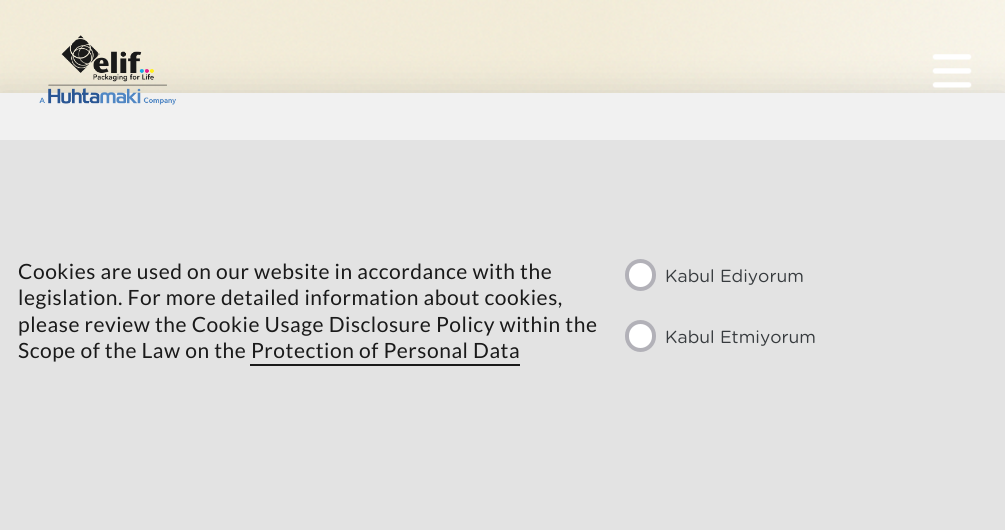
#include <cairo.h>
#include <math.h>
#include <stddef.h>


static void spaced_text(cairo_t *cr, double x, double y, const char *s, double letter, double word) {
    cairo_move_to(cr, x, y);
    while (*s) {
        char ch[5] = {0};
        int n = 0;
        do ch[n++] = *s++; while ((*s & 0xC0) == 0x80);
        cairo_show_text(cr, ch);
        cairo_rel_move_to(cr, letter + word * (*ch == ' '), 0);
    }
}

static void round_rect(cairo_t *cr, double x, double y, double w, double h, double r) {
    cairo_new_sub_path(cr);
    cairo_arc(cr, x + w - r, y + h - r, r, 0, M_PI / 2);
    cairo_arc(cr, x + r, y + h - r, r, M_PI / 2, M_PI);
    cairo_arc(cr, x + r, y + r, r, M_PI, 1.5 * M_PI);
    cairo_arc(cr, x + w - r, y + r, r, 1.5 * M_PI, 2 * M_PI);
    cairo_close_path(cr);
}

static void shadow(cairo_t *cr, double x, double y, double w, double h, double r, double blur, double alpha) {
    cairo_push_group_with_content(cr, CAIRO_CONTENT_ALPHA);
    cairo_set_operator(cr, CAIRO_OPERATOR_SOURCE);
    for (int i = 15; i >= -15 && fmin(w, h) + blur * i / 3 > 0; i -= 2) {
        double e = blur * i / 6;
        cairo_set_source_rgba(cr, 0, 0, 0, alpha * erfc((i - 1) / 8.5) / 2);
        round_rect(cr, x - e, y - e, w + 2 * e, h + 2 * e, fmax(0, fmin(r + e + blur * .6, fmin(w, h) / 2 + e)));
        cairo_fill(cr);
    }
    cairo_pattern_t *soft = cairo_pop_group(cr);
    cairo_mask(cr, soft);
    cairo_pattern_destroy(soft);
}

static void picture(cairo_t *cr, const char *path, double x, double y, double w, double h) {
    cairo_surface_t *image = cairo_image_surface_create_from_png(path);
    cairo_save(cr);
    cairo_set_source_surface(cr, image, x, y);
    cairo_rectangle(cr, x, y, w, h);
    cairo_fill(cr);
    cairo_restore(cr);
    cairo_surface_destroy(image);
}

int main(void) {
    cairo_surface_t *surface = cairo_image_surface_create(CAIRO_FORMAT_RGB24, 1005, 530);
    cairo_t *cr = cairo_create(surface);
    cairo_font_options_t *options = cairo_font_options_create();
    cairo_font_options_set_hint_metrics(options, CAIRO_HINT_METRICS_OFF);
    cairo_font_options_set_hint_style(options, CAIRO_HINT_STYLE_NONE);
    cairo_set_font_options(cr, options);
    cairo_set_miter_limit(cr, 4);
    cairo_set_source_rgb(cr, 1, 1, 1);
    cairo_paint(cr);
    picture(cr, "img3.png", 0, 0, 1005, 93);
    cairo_set_source_rgb(cr, 0.102, 0.102, 0.102);
    shadow(cr, -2, 93, 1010, 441, 0, 17.5, 0.3);
    cairo_set_source_rgb(cr, 0.89, 0.89, 0.89);
    cairo_rectangle(cr, 0, 93, 1005, 437);
    cairo_fill(cr);
    cairo_set_source_rgba(cr, 1, 1, 1, 0.5);
    cairo_rectangle(cr, 0, 0, 1005, 140);
    cairo_fill(cr);
    picture(cr, "img1.png", 39, 35, 137, 70);
    picture(cr, "img2.png", 932, 54, 40, 34);
    cairo_select_font_face(cr, "Lato", CAIRO_FONT_SLANT_NORMAL, CAIRO_FONT_WEIGHT_NORMAL);
    cairo_set_font_size(cr, 21);
    cairo_set_source_rgb(cr, 0.102, 0.102, 0.102);
    spaced_text(cr, 18, 279, "Cookies are used on our website in accordance with the", 0.53, 0);
    spaced_text(cr, 18, 305, "legislation. For more detailed information about cookies,", 0.53, 0);
    spaced_text(cr, 18, 332, "please review the Cookie Usage Disclosure Policy within the", 0.53, 0);
    spaced_text(cr, 18, 358, "Scope of the Law on the Protection of Personal Data", 0.53, 0);
    cairo_rectangle(cr, 250, 364, 270, 2);
    cairo_fill(cr);
    cairo_set_source_rgb(cr, 1, 1, 1);
    round_rect(cr, 627, 261, 27, 28, 13.5);
    cairo_fill_preserve(cr);
    cairo_set_source_rgb(cr, 0.698, 0.694, 0.722);
    cairo_set_line_width(cr, 4);
    cairo_stroke(cr);
    cairo_select_font_face(cr, "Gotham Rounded", CAIRO_FONT_SLANT_NORMAL, CAIRO_FONT_WEIGHT_NORMAL);
    cairo_set_font_size(cr, 17.5);
    cairo_set_source_rgb(cr, 0.216, 0.231, 0.243);
    cairo_move_to(cr, 665, 282);
    cairo_show_text(cr, "Kabul Ediyorum");
    cairo_set_source_rgb(cr, 1, 1, 1);
    round_rect(cr, 627, 322, 27, 28, 13.5);
    cairo_fill_preserve(cr);
    cairo_set_source_rgb(cr, 0.698, 0.694, 0.722);
    cairo_stroke(cr);
    cairo_set_source_rgb(cr, 0.216, 0.231, 0.243);
    cairo_move_to(cr, 665, 343);
    cairo_show_text(cr, "Kabul Etmiyorum");
    cairo_surface_write_to_png(surface, "page.png");
    cairo_font_options_destroy(options);
    cairo_destroy(cr);
    cairo_surface_destroy(surface);
    return 0;
}
